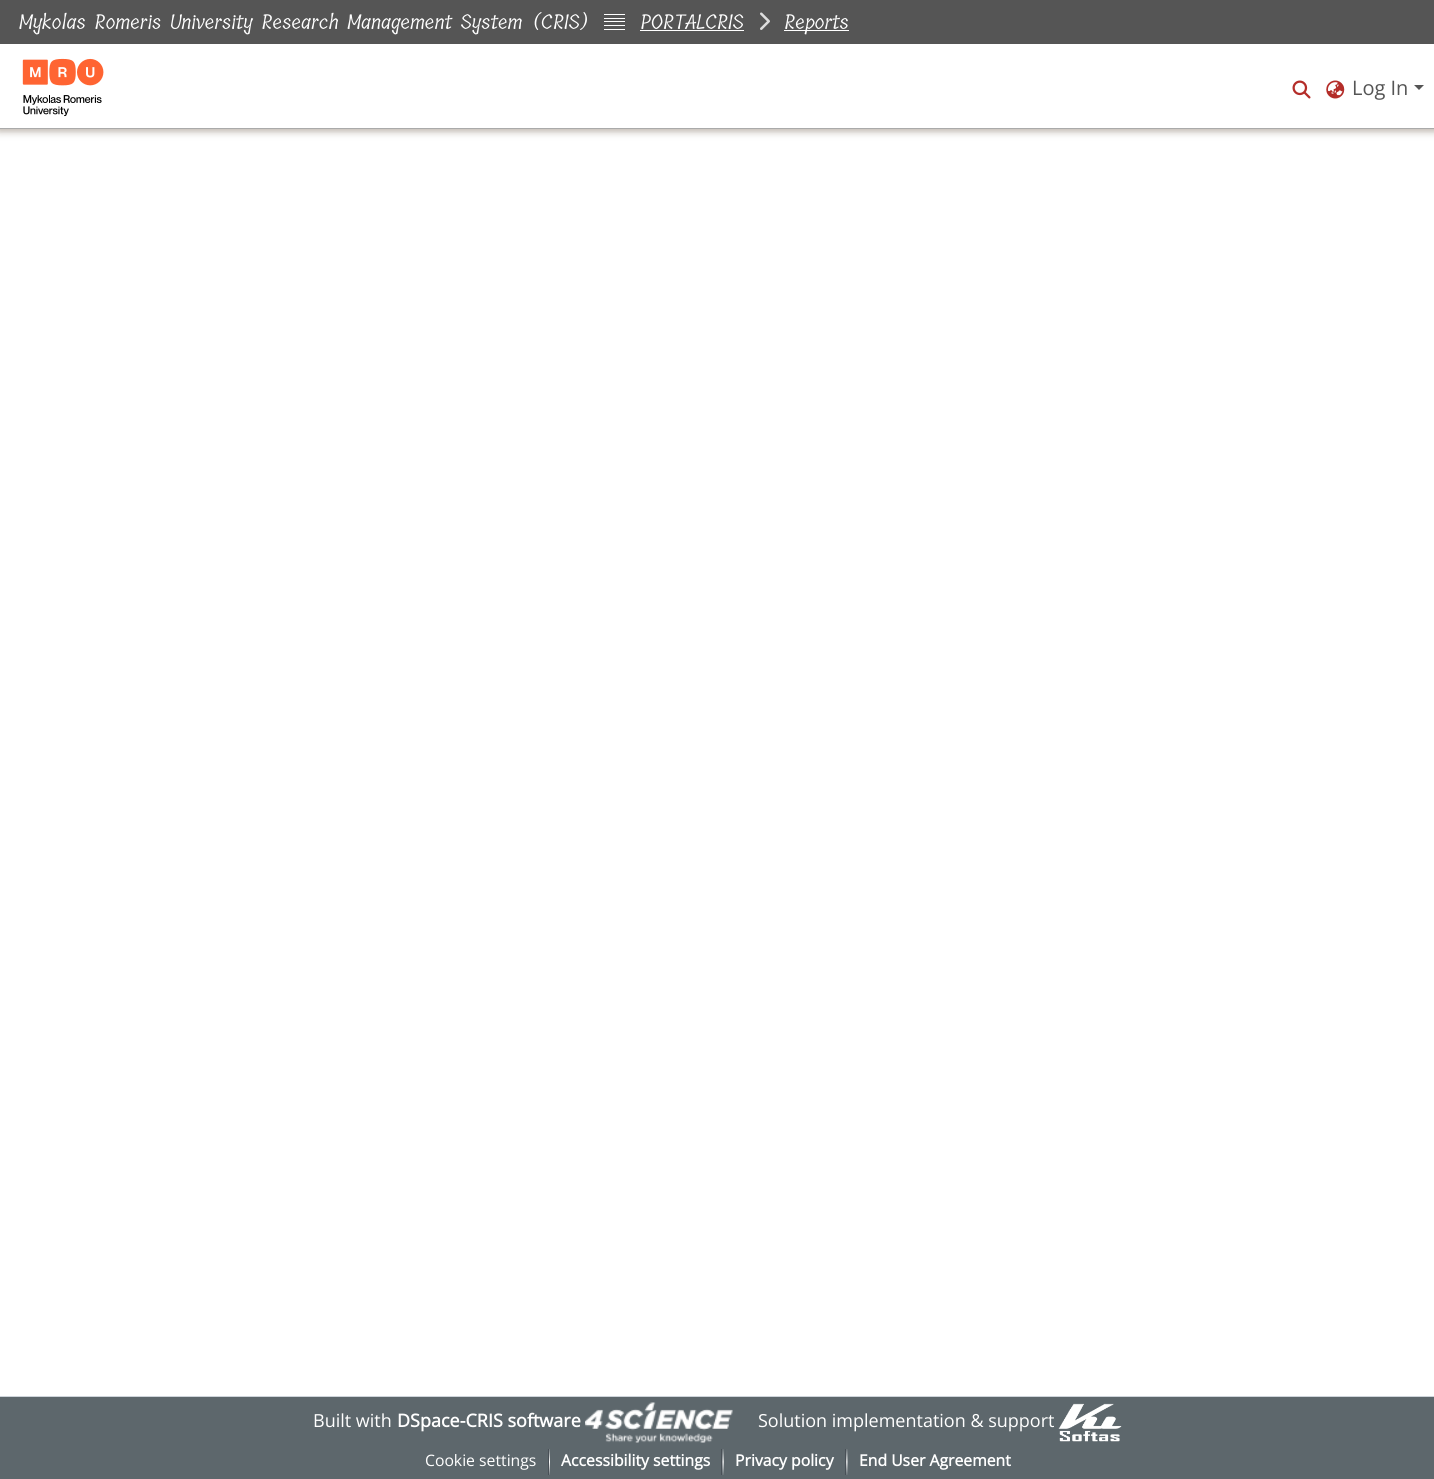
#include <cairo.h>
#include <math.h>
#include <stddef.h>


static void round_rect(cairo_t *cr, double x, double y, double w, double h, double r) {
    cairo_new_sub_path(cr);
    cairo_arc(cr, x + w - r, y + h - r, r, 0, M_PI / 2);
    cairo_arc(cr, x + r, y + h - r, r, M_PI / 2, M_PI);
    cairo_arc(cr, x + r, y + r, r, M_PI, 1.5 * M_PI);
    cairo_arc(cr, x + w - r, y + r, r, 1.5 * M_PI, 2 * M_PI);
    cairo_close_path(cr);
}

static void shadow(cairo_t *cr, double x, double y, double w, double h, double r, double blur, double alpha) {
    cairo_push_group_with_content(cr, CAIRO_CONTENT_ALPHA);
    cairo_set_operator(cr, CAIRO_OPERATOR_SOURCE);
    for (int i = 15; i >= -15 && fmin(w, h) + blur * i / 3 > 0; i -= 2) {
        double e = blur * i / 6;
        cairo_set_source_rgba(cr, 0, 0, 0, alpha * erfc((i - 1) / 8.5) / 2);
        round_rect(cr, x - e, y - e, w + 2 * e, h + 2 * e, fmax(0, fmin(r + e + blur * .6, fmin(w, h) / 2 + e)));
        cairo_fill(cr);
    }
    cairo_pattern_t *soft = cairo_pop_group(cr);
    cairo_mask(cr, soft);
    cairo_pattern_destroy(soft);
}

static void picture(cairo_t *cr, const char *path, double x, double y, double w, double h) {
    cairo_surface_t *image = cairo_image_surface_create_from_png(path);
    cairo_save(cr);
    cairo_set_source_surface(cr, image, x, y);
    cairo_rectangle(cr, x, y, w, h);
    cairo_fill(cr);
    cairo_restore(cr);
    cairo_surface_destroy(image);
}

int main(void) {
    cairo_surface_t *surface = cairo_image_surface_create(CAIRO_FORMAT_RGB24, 1434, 1479);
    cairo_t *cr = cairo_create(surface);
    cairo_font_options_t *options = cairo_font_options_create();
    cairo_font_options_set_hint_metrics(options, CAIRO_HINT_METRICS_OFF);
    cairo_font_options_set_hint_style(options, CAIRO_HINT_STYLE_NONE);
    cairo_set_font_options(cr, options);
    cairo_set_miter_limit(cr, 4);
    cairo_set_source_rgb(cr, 1, 1, 1);
    cairo_paint(cr);
    cairo_set_source_rgb(cr, 0.408, 0.341, 0.267);
    shadow(cr, -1, 0, 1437, 131, 0, 4, 0.5);
    cairo_set_source_rgb(cr, 1, 1, 1);
    cairo_rectangle(cr, 0, 44, 1434, 84);
    cairo_fill(cr);
    cairo_set_source_rgb(cr, 0.667, 0.667, 0.667);
    cairo_rectangle(cr, 0, 128, 1434, 1);
    cairo_fill(cr);
    cairo_set_source_rgb(cr, 0.333, 0.333, 0.333);
    cairo_rectangle(cr, 0, 0, 1434, 44);
    cairo_fill(cr);
    cairo_select_font_face(cr, "Tillana", CAIRO_FONT_SLANT_NORMAL, CAIRO_FONT_WEIGHT_NORMAL);
    cairo_set_font_size(cr, 20);
    cairo_set_source_rgb(cr, 1, 1, 1);
    cairo_move_to(cr, 19, 29);
    cairo_show_text(cr, "Mykolas Romeris University Research Management System (CRIS)");
    cairo_rectangle(cr, 604, 14, 21, 1);
    cairo_fill(cr);
    cairo_rectangle(cr, 604, 18, 21, 1);
    cairo_fill(cr);
    cairo_rectangle(cr, 604, 21, 21, 1);
    cairo_fill(cr);
    cairo_rectangle(cr, 604, 25, 21, 1);
    cairo_fill(cr);
    cairo_rectangle(cr, 604, 29, 21, 1);
    cairo_fill(cr);
    cairo_move_to(cr, 640, 29);
    cairo_show_text(cr, "PORTALCRIS");
    cairo_rectangle(cr, 640, 30, 104, 1);
    cairo_fill(cr);
    picture(cr, "img1.png", 760, 12, 10, 18);
    cairo_rectangle(cr, 784, 30, 65, 1);
    cairo_fill(cr);
    cairo_move_to(cr, 784, 29);
    cairo_show_text(cr, "Reports");
    picture(cr, "img2.png", 22, 58, 82, 59);
    picture(cr, "img3.png", 1292, 80, 19, 19);
    picture(cr, "img4.png", 1326, 80, 19, 19);
    cairo_select_font_face(cr, "Open Sans", CAIRO_FONT_SLANT_NORMAL, CAIRO_FONT_WEIGHT_NORMAL);
    cairo_set_source_rgb(cr, 0.333, 0.333, 0.333);
    cairo_move_to(cr, 1352, 95);
    cairo_show_text(cr, "Log In");
    cairo_new_path(cr);
    cairo_move_to(cr, 1414, 85);
    cairo_line_to(cr, 1424, 85);
    cairo_line_to(cr, 1419, 90);
    cairo_close_path(cr);
    cairo_fill(cr);
    cairo_set_source_rgb(cr, 0.365, 0.404, 0.424);
    cairo_rectangle(cr, 0, 1397, 1434, 82);
    cairo_fill(cr);
    cairo_set_source_rgb(cr, 0.808, 0.831, 0.855);
    cairo_rectangle(cr, 0, 1396, 1434, 1);
    cairo_fill(cr);
    cairo_set_font_size(cr, 18);
    cairo_set_source_rgb(cr, 1, 1, 1);
    cairo_move_to(cr, 313, 1427);
    cairo_show_text(cr, "Built with");
    cairo_select_font_face(cr, "Open Sans", CAIRO_FONT_SLANT_NORMAL, CAIRO_FONT_WEIGHT_BOLD);
    cairo_move_to(cr, 397, 1427);
    cairo_show_text(cr, "DSpace-CRIS software");
    picture(cr, "img5.png", 585, 1402, 148, 41);
    cairo_select_font_face(cr, "Open Sans", CAIRO_FONT_SLANT_NORMAL, CAIRO_FONT_WEIGHT_NORMAL);
    cairo_move_to(cr, 758, 1427);
    cairo_show_text(cr, "Solution implementation & support");
    picture(cr, "img6.png", 1058, 1403, 64, 39);
    picture(cr, "img7.png", 549, 1449, 1, 26);
    cairo_set_font_size(cr, 15.75);
    cairo_move_to(cr, 425, 1466);
    cairo_show_text(cr, "Cookie settings");
    cairo_set_source_rgb(cr, 0.286, 0.314, 0.341);
    cairo_rectangle(cr, 548, 1449, 1, 26);
    cairo_fill(cr);
    picture(cr, "img8.png", 722, 1449, 2, 26);
    cairo_select_font_face(cr, "Open Sans", CAIRO_FONT_SLANT_NORMAL, CAIRO_FONT_WEIGHT_BOLD);
    cairo_set_source_rgb(cr, 1, 1, 1);
    cairo_move_to(cr, 561, 1466);
    cairo_show_text(cr, "Accessibility settings");
    cairo_set_source_rgb(cr, 0.286, 0.314, 0.341);
    cairo_rectangle(cr, 721, 1449, 1, 26);
    cairo_fill(cr);
    picture(cr, "img9.png", 846, 1449, 2, 26);
    cairo_set_source_rgb(cr, 1, 1, 1);
    cairo_move_to(cr, 735, 1466);
    cairo_show_text(cr, "Privacy policy");
    cairo_set_source_rgb(cr, 0.286, 0.314, 0.341);
    cairo_rectangle(cr, 845, 1449, 1, 26);
    cairo_fill(cr);
    cairo_set_source_rgb(cr, 1, 1, 1);
    cairo_move_to(cr, 859, 1466);
    cairo_show_text(cr, "End User Agreement");
    cairo_surface_write_to_png(surface, "page.png");
    cairo_font_options_destroy(options);
    cairo_destroy(cr);
    cairo_surface_destroy(surface);
    return 0;
}
